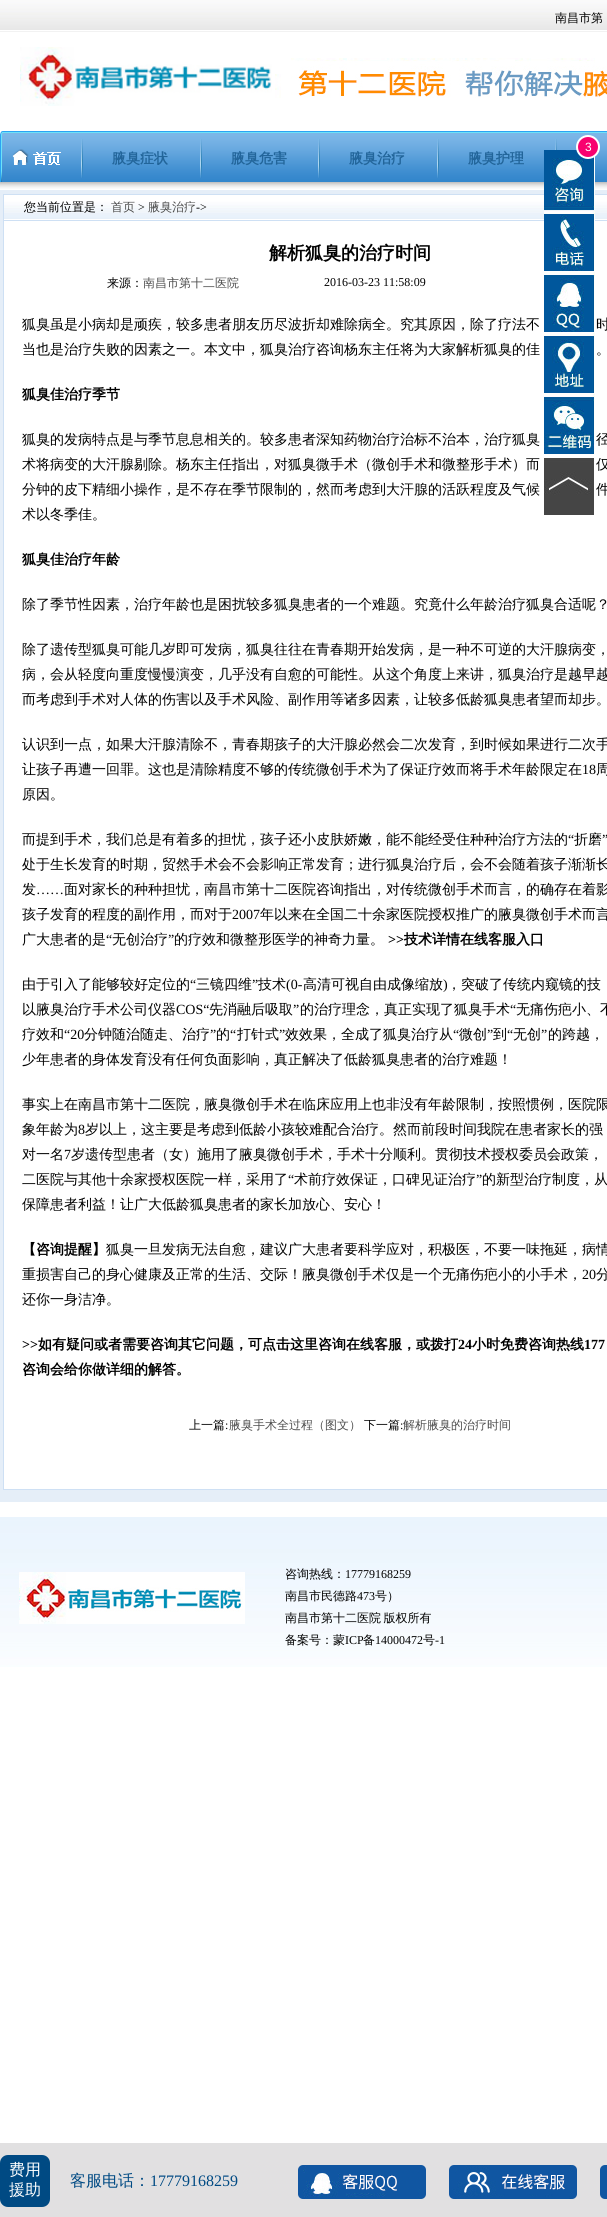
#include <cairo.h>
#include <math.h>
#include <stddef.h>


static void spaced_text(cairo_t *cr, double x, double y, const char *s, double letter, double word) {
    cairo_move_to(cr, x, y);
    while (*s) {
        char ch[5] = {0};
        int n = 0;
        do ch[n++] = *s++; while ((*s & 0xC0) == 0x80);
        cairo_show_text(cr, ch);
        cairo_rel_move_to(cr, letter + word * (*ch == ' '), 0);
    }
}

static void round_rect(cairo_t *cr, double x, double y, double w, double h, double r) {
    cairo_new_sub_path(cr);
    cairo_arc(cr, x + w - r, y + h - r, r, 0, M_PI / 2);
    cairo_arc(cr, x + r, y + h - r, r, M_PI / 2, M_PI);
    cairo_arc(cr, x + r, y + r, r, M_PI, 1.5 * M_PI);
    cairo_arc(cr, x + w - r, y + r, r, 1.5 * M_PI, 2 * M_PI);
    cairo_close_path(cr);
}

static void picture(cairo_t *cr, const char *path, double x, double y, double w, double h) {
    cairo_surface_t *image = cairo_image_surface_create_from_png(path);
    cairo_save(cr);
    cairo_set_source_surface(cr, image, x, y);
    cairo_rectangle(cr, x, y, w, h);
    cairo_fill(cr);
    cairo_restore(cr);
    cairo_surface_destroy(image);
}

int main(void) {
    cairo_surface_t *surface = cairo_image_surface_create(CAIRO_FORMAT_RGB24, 607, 2217);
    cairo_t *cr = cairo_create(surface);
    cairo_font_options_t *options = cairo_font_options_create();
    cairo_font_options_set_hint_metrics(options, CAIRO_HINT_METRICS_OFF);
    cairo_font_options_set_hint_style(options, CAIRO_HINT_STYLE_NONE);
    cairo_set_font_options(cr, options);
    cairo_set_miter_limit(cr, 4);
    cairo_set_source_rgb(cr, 1, 1, 1);
    cairo_paint(cr);
    picture(cr, "img1.png", 0, 0, 607, 32);
    cairo_select_font_face(cr, "WenQuanYi Zen Hei Medium", CAIRO_FONT_SLANT_NORMAL, CAIRO_FONT_WEIGHT_NORMAL);
    cairo_set_font_size(cr, 12);
    cairo_set_source_rgb(cr, 0, 0, 0);
    cairo_move_to(cr, 555, 22);
    cairo_show_text(cr, "南昌市第");
    picture(cr, "img2.png", 20, 47, 252, 59);
    picture(cr, "img3.png", 275, 58, 332, 40);
    picture(cr, "img4.png", 0, 131, 607, 58);
    picture(cr, "img5.png", 0, 131, 61, 51);
    picture(cr, "img6.png", 555, 139, 2, 11);
    picture(cr, "img7.png", 81, 139, 2, 39);
    cairo_select_font_face(cr, "WenQuanYi Zen Hei", CAIRO_FONT_SLANT_NORMAL, CAIRO_FONT_WEIGHT_BOLD);
    cairo_set_font_size(cr, 14);
    cairo_set_source_rgb(cr, 0.133, 0.396, 0.604);
    cairo_move_to(cr, 112, 163);
    cairo_show_text(cr, "腋臭症状");
    picture(cr, "img7.png", 200, 139, 2, 39);
    cairo_move_to(cr, 231, 163);
    cairo_show_text(cr, "腋臭危害");
    picture(cr, "img7.png", 318, 139, 2, 39);
    cairo_move_to(cr, 349, 163);
    cairo_show_text(cr, "腋臭治疗");
    picture(cr, "img7.png", 437, 139, 2, 39);
    cairo_move_to(cr, 468, 163);
    cairo_show_text(cr, "腋臭护理");
    cairo_set_source_rgb(cr, 0.898, 0.933, 0.969);
    cairo_rectangle(cr, 0, 190, 607, 1312);
    cairo_fill(cr);
    picture(cr, "img8.png", 4, 195, 603, 25);
    cairo_rectangle(cr, 3.5, 194.5, 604, 26);
    cairo_set_source_rgb(cr, 0.808, 0.878, 0.957);
    cairo_set_line_width(cr, 1);
    cairo_stroke(cr);
    cairo_select_font_face(cr, "WenQuanYi Zen Hei Medium", CAIRO_FONT_SLANT_NORMAL, CAIRO_FONT_WEIGHT_NORMAL);
    cairo_set_font_size(cr, 12);
    cairo_set_source_rgb(cr, 0, 0, 0);
    cairo_move_to(cr, 24, 211);
    cairo_show_text(cr, "您当前位置是：");
    cairo_set_source_rgb(cr, 0.298, 0.298, 0.298);
    cairo_move_to(cr, 111, 211);
    cairo_show_text(cr, "首页");
    cairo_select_font_face(cr, "Liberation Serif", CAIRO_FONT_SLANT_NORMAL, CAIRO_FONT_WEIGHT_NORMAL);
    cairo_set_source_rgb(cr, 0, 0, 0);
    cairo_move_to(cr, 138, 211);
    cairo_show_text(cr, ">");
    cairo_select_font_face(cr, "WenQuanYi Zen Hei Medium", CAIRO_FONT_SLANT_NORMAL, CAIRO_FONT_WEIGHT_NORMAL);
    cairo_set_source_rgb(cr, 0.298, 0.298, 0.298);
    cairo_move_to(cr, 148, 211);
    cairo_show_text(cr, "腋臭治疗");
    cairo_select_font_face(cr, "Liberation Serif", CAIRO_FONT_SLANT_NORMAL, CAIRO_FONT_WEIGHT_NORMAL);
    cairo_set_source_rgb(cr, 0, 0, 0);
    cairo_move_to(cr, 196, 211);
    cairo_show_text(cr, "->");
    cairo_set_source_rgb(cr, 1, 1, 1);
    cairo_rectangle(cr, 4, 221, 603, 1268);
    cairo_fill(cr);
    cairo_set_source_rgb(cr, 0.808, 0.878, 0.957);
    cairo_rectangle(cr, 3, 1489, 604, 1);
    cairo_fill(cr);
    cairo_rectangle(cr, 3, 221, 1, 1269);
    cairo_fill(cr);
    cairo_select_font_face(cr, "WenQuanYi Zen Hei", CAIRO_FONT_SLANT_NORMAL, CAIRO_FONT_WEIGHT_BOLD);
    cairo_set_font_size(cr, 18);
    cairo_set_source_rgb(cr, 0, 0, 0);
    cairo_move_to(cr, 269, 259);
    cairo_show_text(cr, "解析狐臭的治疗时间");
    cairo_select_font_face(cr, "WenQuanYi Zen Hei Medium", CAIRO_FONT_SLANT_NORMAL, CAIRO_FONT_WEIGHT_NORMAL);
    cairo_set_font_size(cr, 12);
    cairo_move_to(cr, 107, 287);
    cairo_show_text(cr, "来源：");
    cairo_set_source_rgb(cr, 0.298, 0.298, 0.298);
    cairo_move_to(cr, 143, 287);
    cairo_show_text(cr, "南昌市第十二医院");
    cairo_select_font_face(cr, "Liberation Serif", CAIRO_FONT_SLANT_NORMAL, CAIRO_FONT_WEIGHT_NORMAL);
    cairo_set_source_rgb(cr, 0, 0, 0);
    cairo_move_to(cr, 324, 286);
    cairo_show_text(cr, "2016-03-23 11:58:09");
    cairo_select_font_face(cr, "WenQuanYi Zen Hei Medium", CAIRO_FONT_SLANT_NORMAL, CAIRO_FONT_WEIGHT_NORMAL);
    cairo_set_font_size(cr, 14);
    cairo_move_to(cr, 22, 329);
    cairo_show_text(cr, "狐臭虽是小病却是顽疾，较多患者朋友历尽波折却难除病全。究其原因，除了疗法不");
    cairo_move_to(cr, 596, 329);
    cairo_show_text(cr, "时");
    cairo_move_to(cr, 22, 354);
    cairo_show_text(cr, "当也是治疗失败的因素之一。本文中，狐臭治疗咨询杨东主任将为大家解析狐臭的佳");
    cairo_move_to(cr, 596, 354);
    cairo_show_text(cr, "。");
    cairo_select_font_face(cr, "WenQuanYi Zen Hei", CAIRO_FONT_SLANT_NORMAL, CAIRO_FONT_WEIGHT_BOLD);
    cairo_move_to(cr, 22, 399);
    cairo_show_text(cr, "狐臭佳治疗季节");
    cairo_select_font_face(cr, "WenQuanYi Zen Hei Medium", CAIRO_FONT_SLANT_NORMAL, CAIRO_FONT_WEIGHT_NORMAL);
    cairo_move_to(cr, 22, 444);
    cairo_show_text(cr, "狐臭的发病特点是与季节息息相关的。较多患者深知药物治疗治标不治本，治疗狐臭");
    cairo_move_to(cr, 596, 444);
    cairo_show_text(cr, "径");
    cairo_move_to(cr, 22, 469);
    cairo_show_text(cr, "术将病变的大汗腺剔除。杨东主任指出，对狐臭微手术（微创手术和微整形手术）而");
    cairo_move_to(cr, 596, 469);
    cairo_show_text(cr, "仅");
    cairo_move_to(cr, 22, 494);
    cairo_show_text(cr, "分钟的皮下精细小操作，是不存在季节限制的，然而考虑到大汗腺的活跃程度及气候");
    cairo_move_to(cr, 596, 494);
    cairo_show_text(cr, "件");
    cairo_move_to(cr, 22, 519);
    cairo_show_text(cr, "术以冬季佳。");
    cairo_select_font_face(cr, "WenQuanYi Zen Hei", CAIRO_FONT_SLANT_NORMAL, CAIRO_FONT_WEIGHT_BOLD);
    cairo_move_to(cr, 22, 564);
    cairo_show_text(cr, "狐臭佳治疗年龄");
    cairo_select_font_face(cr, "WenQuanYi Zen Hei Medium", CAIRO_FONT_SLANT_NORMAL, CAIRO_FONT_WEIGHT_NORMAL);
    cairo_move_to(cr, 22, 609);
    cairo_show_text(cr, "除了季节性因素，治疗年龄也是困扰较多狐臭患者的一个难题。究竟什么年龄治疗狐臭合适呢？");
    cairo_move_to(cr, 22, 654);
    cairo_show_text(cr, "除了遗传型狐臭可能几岁即可发病，狐臭往往在青春期开始发病，是一种不可逆的大汗腺病变，");
    cairo_move_to(cr, 22, 679);
    cairo_show_text(cr, "病，会从轻度向重度慢慢演变，几乎没有自愈的可能性。从这个角度上来讲，狐臭治疗是越早越");
    cairo_move_to(cr, 22, 704);
    cairo_show_text(cr, "而考虑到手术对人体的伤害以及手术风险、副作用等诸多因素，让较多低龄狐臭患者望而却步。");
    cairo_move_to(cr, 22, 749);
    cairo_show_text(cr, "认识到一点，如果大汗腺清除不，青春期孩子的大汗腺必然会二次发育，到时候如果进行二次手");
    cairo_move_to(cr, 22, 774);
    cairo_show_text(cr, "让孩子再遭一回罪。这也是清除精度不够的传统微创手术为了保证疗效而将手术年龄限定在");
    cairo_select_font_face(cr, "Liberation Serif", CAIRO_FONT_SLANT_NORMAL, CAIRO_FONT_WEIGHT_NORMAL);
    cairo_move_to(cr, 582, 774);
    cairo_show_text(cr, "18");
    cairo_select_font_face(cr, "WenQuanYi Zen Hei Medium", CAIRO_FONT_SLANT_NORMAL, CAIRO_FONT_WEIGHT_NORMAL);
    cairo_move_to(cr, 596, 774);
    cairo_show_text(cr, "周");
    cairo_move_to(cr, 22, 799);
    cairo_show_text(cr, "原因。");
    cairo_move_to(cr, 22, 844);
    cairo_show_text(cr, "而提到手术，我们总是有着多的担忧，孩子还小皮肤娇嫩，能不能经受住种种治疗方法的");
    cairo_select_font_face(cr, "Liberation Serif", CAIRO_FONT_SLANT_NORMAL, CAIRO_FONT_WEIGHT_NORMAL);
    cairo_move_to(cr, 568, 844);
    cairo_show_text(cr, "“");
    cairo_select_font_face(cr, "WenQuanYi Zen Hei Medium", CAIRO_FONT_SLANT_NORMAL, CAIRO_FONT_WEIGHT_NORMAL);
    cairo_move_to(cr, 574, 844);
    cairo_show_text(cr, "折磨");
    cairo_select_font_face(cr, "Liberation Serif", CAIRO_FONT_SLANT_NORMAL, CAIRO_FONT_WEIGHT_NORMAL);
    cairo_move_to(cr, 602, 844);
    cairo_show_text(cr, "”");
    cairo_select_font_face(cr, "WenQuanYi Zen Hei Medium", CAIRO_FONT_SLANT_NORMAL, CAIRO_FONT_WEIGHT_NORMAL);
    cairo_move_to(cr, 22, 869);
    cairo_show_text(cr, "处于生长发育的时期，贸然手术会不会影响正常发育；进行狐臭治疗后，会不会随着孩子渐渐长");
    cairo_move_to(cr, 22, 894);
    cairo_show_text(cr, "发");
    cairo_select_font_face(cr, "Liberation Serif", CAIRO_FONT_SLANT_NORMAL, CAIRO_FONT_WEIGHT_NORMAL);
    cairo_move_to(cr, 36, 894);
    cairo_show_text(cr, "……");
    cairo_select_font_face(cr, "WenQuanYi Zen Hei Medium", CAIRO_FONT_SLANT_NORMAL, CAIRO_FONT_WEIGHT_NORMAL);
    cairo_move_to(cr, 64, 894);
    cairo_show_text(cr, "面对家长的种种担忧，南昌市第十二医院咨询指出，对传统微创手术而言，的确存在着影");
    cairo_move_to(cr, 22, 919);
    cairo_show_text(cr, "孩子发育的程度的副作用，而对于");
    cairo_select_font_face(cr, "Liberation Serif", CAIRO_FONT_SLANT_NORMAL, CAIRO_FONT_WEIGHT_NORMAL);
    cairo_move_to(cr, 232, 919);
    cairo_show_text(cr, "2007");
    cairo_select_font_face(cr, "WenQuanYi Zen Hei Medium", CAIRO_FONT_SLANT_NORMAL, CAIRO_FONT_WEIGHT_NORMAL);
    cairo_move_to(cr, 260, 919);
    cairo_show_text(cr, "年以来在全国二十余家医院授权推广的腋臭微创手术而言");
    cairo_move_to(cr, 22, 944);
    cairo_show_text(cr, "广大患者的是");
    cairo_select_font_face(cr, "Liberation Serif", CAIRO_FONT_SLANT_NORMAL, CAIRO_FONT_WEIGHT_NORMAL);
    cairo_move_to(cr, 106, 944);
    cairo_show_text(cr, "“");
    cairo_select_font_face(cr, "WenQuanYi Zen Hei Medium", CAIRO_FONT_SLANT_NORMAL, CAIRO_FONT_WEIGHT_NORMAL);
    cairo_move_to(cr, 112, 944);
    cairo_show_text(cr, "无创治疗");
    cairo_select_font_face(cr, "Liberation Serif", CAIRO_FONT_SLANT_NORMAL, CAIRO_FONT_WEIGHT_NORMAL);
    cairo_move_to(cr, 168, 944);
    cairo_show_text(cr, "”");
    cairo_select_font_face(cr, "WenQuanYi Zen Hei Medium", CAIRO_FONT_SLANT_NORMAL, CAIRO_FONT_WEIGHT_NORMAL);
    cairo_move_to(cr, 174, 944);
    cairo_show_text(cr, "的疗效和微整形医学的神奇力量。");
    cairo_select_font_face(cr, "Liberation Serif", CAIRO_FONT_SLANT_NORMAL, CAIRO_FONT_WEIGHT_BOLD);
    cairo_move_to(cr, 388, 944);
    cairo_show_text(cr, ">>");
    cairo_select_font_face(cr, "WenQuanYi Zen Hei", CAIRO_FONT_SLANT_NORMAL, CAIRO_FONT_WEIGHT_BOLD);
    cairo_move_to(cr, 404, 944);
    cairo_show_text(cr, "技术详情在线客服入口");
    cairo_select_font_face(cr, "WenQuanYi Zen Hei Medium", CAIRO_FONT_SLANT_NORMAL, CAIRO_FONT_WEIGHT_NORMAL);
    cairo_move_to(cr, 22, 989);
    cairo_show_text(cr, "由于引入了能够较好定位的");
    cairo_select_font_face(cr, "Liberation Serif", CAIRO_FONT_SLANT_NORMAL, CAIRO_FONT_WEIGHT_NORMAL);
    cairo_move_to(cr, 190, 989);
    cairo_show_text(cr, "“");
    cairo_select_font_face(cr, "WenQuanYi Zen Hei Medium", CAIRO_FONT_SLANT_NORMAL, CAIRO_FONT_WEIGHT_NORMAL);
    cairo_move_to(cr, 196, 989);
    cairo_show_text(cr, "三镜四维");
    cairo_select_font_face(cr, "Liberation Serif", CAIRO_FONT_SLANT_NORMAL, CAIRO_FONT_WEIGHT_NORMAL);
    cairo_move_to(cr, 252, 989);
    cairo_show_text(cr, "”");
    cairo_select_font_face(cr, "WenQuanYi Zen Hei Medium", CAIRO_FONT_SLANT_NORMAL, CAIRO_FONT_WEIGHT_NORMAL);
    cairo_move_to(cr, 258, 989);
    cairo_show_text(cr, "技术");
    cairo_select_font_face(cr, "Liberation Serif", CAIRO_FONT_SLANT_NORMAL, CAIRO_FONT_WEIGHT_NORMAL);
    cairo_move_to(cr, 286, 989);
    cairo_show_text(cr, "(0-");
    cairo_select_font_face(cr, "WenQuanYi Zen Hei Medium", CAIRO_FONT_SLANT_NORMAL, CAIRO_FONT_WEIGHT_NORMAL);
    cairo_move_to(cr, 303, 989);
    cairo_show_text(cr, "高清可视自由成像缩放");
    cairo_select_font_face(cr, "Liberation Serif", CAIRO_FONT_SLANT_NORMAL, CAIRO_FONT_WEIGHT_NORMAL);
    cairo_move_to(cr, 443, 989);
    cairo_show_text(cr, ")");
    cairo_select_font_face(cr, "WenQuanYi Zen Hei Medium", CAIRO_FONT_SLANT_NORMAL, CAIRO_FONT_WEIGHT_NORMAL);
    cairo_move_to(cr, 447, 989);
    cairo_show_text(cr, "，突破了传统内窥镜的技");
    cairo_move_to(cr, 22, 1014);
    cairo_show_text(cr, "以腋臭治疗手术公司仪器");
    cairo_select_font_face(cr, "Liberation Serif", CAIRO_FONT_SLANT_NORMAL, CAIRO_FONT_WEIGHT_NORMAL);
    cairo_move_to(cr, 176, 1014);
    cairo_show_text(cr, "COS“");
    cairo_select_font_face(cr, "WenQuanYi Zen Hei Medium", CAIRO_FONT_SLANT_NORMAL, CAIRO_FONT_WEIGHT_NORMAL);
    cairo_move_to(cr, 209, 1014);
    cairo_show_text(cr, "先消融后吸取");
    cairo_select_font_face(cr, "Liberation Serif", CAIRO_FONT_SLANT_NORMAL, CAIRO_FONT_WEIGHT_NORMAL);
    cairo_move_to(cr, 293, 1014);
    cairo_show_text(cr, "”");
    cairo_select_font_face(cr, "WenQuanYi Zen Hei Medium", CAIRO_FONT_SLANT_NORMAL, CAIRO_FONT_WEIGHT_NORMAL);
    cairo_move_to(cr, 300, 1014);
    cairo_show_text(cr, "的治疗理念，真正实现了狐臭手术");
    cairo_select_font_face(cr, "Liberation Serif", CAIRO_FONT_SLANT_NORMAL, CAIRO_FONT_WEIGHT_NORMAL);
    cairo_move_to(cr, 510, 1014);
    cairo_show_text(cr, "“");
    cairo_select_font_face(cr, "WenQuanYi Zen Hei Medium", CAIRO_FONT_SLANT_NORMAL, CAIRO_FONT_WEIGHT_NORMAL);
    cairo_move_to(cr, 516, 1014);
    cairo_show_text(cr, "无痛伤疤小、不");
    cairo_move_to(cr, 22, 1039);
    cairo_show_text(cr, "疗效和");
    cairo_select_font_face(cr, "Liberation Serif", CAIRO_FONT_SLANT_NORMAL, CAIRO_FONT_WEIGHT_NORMAL);
    cairo_move_to(cr, 64, 1039);
    cairo_show_text(cr, "“20");
    cairo_select_font_face(cr, "WenQuanYi Zen Hei Medium", CAIRO_FONT_SLANT_NORMAL, CAIRO_FONT_WEIGHT_NORMAL);
    cairo_move_to(cr, 84, 1039);
    cairo_show_text(cr, "分钟随治随走、治疗");
    cairo_select_font_face(cr, "Liberation Serif", CAIRO_FONT_SLANT_NORMAL, CAIRO_FONT_WEIGHT_NORMAL);
    cairo_move_to(cr, 210, 1039);
    cairo_show_text(cr, "”");
    cairo_select_font_face(cr, "WenQuanYi Zen Hei Medium", CAIRO_FONT_SLANT_NORMAL, CAIRO_FONT_WEIGHT_NORMAL);
    cairo_move_to(cr, 216, 1039);
    cairo_show_text(cr, "的");
    cairo_select_font_face(cr, "Liberation Serif", CAIRO_FONT_SLANT_NORMAL, CAIRO_FONT_WEIGHT_NORMAL);
    cairo_move_to(cr, 230, 1039);
    cairo_show_text(cr, "“");
    cairo_select_font_face(cr, "WenQuanYi Zen Hei Medium", CAIRO_FONT_SLANT_NORMAL, CAIRO_FONT_WEIGHT_NORMAL);
    cairo_move_to(cr, 237, 1039);
    cairo_show_text(cr, "打针式");
    cairo_select_font_face(cr, "Liberation Serif", CAIRO_FONT_SLANT_NORMAL, CAIRO_FONT_WEIGHT_NORMAL);
    cairo_move_to(cr, 279, 1039);
    cairo_show_text(cr, "”");
    cairo_select_font_face(cr, "WenQuanYi Zen Hei Medium", CAIRO_FONT_SLANT_NORMAL, CAIRO_FONT_WEIGHT_NORMAL);
    cairo_move_to(cr, 285, 1039);
    cairo_show_text(cr, "效效果，全成了狐臭治疗从");
    cairo_select_font_face(cr, "Liberation Serif", CAIRO_FONT_SLANT_NORMAL, CAIRO_FONT_WEIGHT_NORMAL);
    cairo_move_to(cr, 453, 1039);
    cairo_show_text(cr, "“");
    cairo_select_font_face(cr, "WenQuanYi Zen Hei Medium", CAIRO_FONT_SLANT_NORMAL, CAIRO_FONT_WEIGHT_NORMAL);
    cairo_move_to(cr, 459, 1039);
    cairo_show_text(cr, "微创");
    cairo_select_font_face(cr, "Liberation Serif", CAIRO_FONT_SLANT_NORMAL, CAIRO_FONT_WEIGHT_NORMAL);
    cairo_move_to(cr, 487, 1039);
    cairo_show_text(cr, "”");
    cairo_select_font_face(cr, "WenQuanYi Zen Hei Medium", CAIRO_FONT_SLANT_NORMAL, CAIRO_FONT_WEIGHT_NORMAL);
    cairo_move_to(cr, 493, 1039);
    cairo_show_text(cr, "到");
    cairo_select_font_face(cr, "Liberation Serif", CAIRO_FONT_SLANT_NORMAL, CAIRO_FONT_WEIGHT_NORMAL);
    cairo_move_to(cr, 507, 1039);
    cairo_show_text(cr, "“");
    cairo_select_font_face(cr, "WenQuanYi Zen Hei Medium", CAIRO_FONT_SLANT_NORMAL, CAIRO_FONT_WEIGHT_NORMAL);
    cairo_move_to(cr, 513, 1039);
    cairo_show_text(cr, "无创");
    cairo_select_font_face(cr, "Liberation Serif", CAIRO_FONT_SLANT_NORMAL, CAIRO_FONT_WEIGHT_NORMAL);
    cairo_move_to(cr, 541, 1039);
    cairo_show_text(cr, "”");
    cairo_select_font_face(cr, "WenQuanYi Zen Hei Medium", CAIRO_FONT_SLANT_NORMAL, CAIRO_FONT_WEIGHT_NORMAL);
    cairo_move_to(cr, 548, 1039);
    cairo_show_text(cr, "的跨越，");
    cairo_move_to(cr, 22, 1064);
    cairo_show_text(cr, "少年患者的身体发育没有任何负面影响，真正解决了低龄狐臭患者的治疗难题！");
    cairo_move_to(cr, 22, 1109);
    cairo_show_text(cr, "事实上在南昌市第十二医院，腋臭微创手术在临床应用上也非没有年龄限制，按照惯例，医院限");
    cairo_move_to(cr, 22, 1134);
    cairo_show_text(cr, "象年龄为");
    cairo_select_font_face(cr, "Liberation Serif", CAIRO_FONT_SLANT_NORMAL, CAIRO_FONT_WEIGHT_NORMAL);
    cairo_move_to(cr, 78, 1134);
    cairo_show_text(cr, "8");
    cairo_select_font_face(cr, "WenQuanYi Zen Hei Medium", CAIRO_FONT_SLANT_NORMAL, CAIRO_FONT_WEIGHT_NORMAL);
    cairo_move_to(cr, 85, 1134);
    cairo_show_text(cr, "岁以上，这主要是考虑到低龄小孩较难配合治疗。然而前段时间我院在患者家长的强");
    cairo_move_to(cr, 22, 1159);
    cairo_show_text(cr, "对一名");
    cairo_select_font_face(cr, "Liberation Serif", CAIRO_FONT_SLANT_NORMAL, CAIRO_FONT_WEIGHT_NORMAL);
    cairo_move_to(cr, 64, 1159);
    cairo_show_text(cr, "7");
    cairo_select_font_face(cr, "WenQuanYi Zen Hei Medium", CAIRO_FONT_SLANT_NORMAL, CAIRO_FONT_WEIGHT_NORMAL);
    cairo_move_to(cr, 71, 1159);
    cairo_show_text(cr, "岁遗传型患者（女）施用了腋臭微创手术，手术十分顺利。贯彻技术授权委员会政策，");
    cairo_move_to(cr, 22, 1184);
    cairo_show_text(cr, "二医院与其他十余家授权医院一样，采用了");
    cairo_select_font_face(cr, "Liberation Serif", CAIRO_FONT_SLANT_NORMAL, CAIRO_FONT_WEIGHT_NORMAL);
    cairo_move_to(cr, 288, 1184);
    cairo_show_text(cr, "“");
    cairo_select_font_face(cr, "WenQuanYi Zen Hei Medium", CAIRO_FONT_SLANT_NORMAL, CAIRO_FONT_WEIGHT_NORMAL);
    cairo_move_to(cr, 294, 1184);
    cairo_show_text(cr, "术前疗效保证，口碑见证治疗");
    cairo_select_font_face(cr, "Liberation Serif", CAIRO_FONT_SLANT_NORMAL, CAIRO_FONT_WEIGHT_NORMAL);
    cairo_move_to(cr, 476, 1184);
    cairo_show_text(cr, "”");
    cairo_select_font_face(cr, "WenQuanYi Zen Hei Medium", CAIRO_FONT_SLANT_NORMAL, CAIRO_FONT_WEIGHT_NORMAL);
    cairo_move_to(cr, 482, 1184);
    cairo_show_text(cr, "的新型治疗制度，从");
    cairo_move_to(cr, 22, 1209);
    cairo_show_text(cr, "保障患者利益！让广大低龄狐臭患者的家长加放心、安心！");
    cairo_select_font_face(cr, "WenQuanYi Zen Hei", CAIRO_FONT_SLANT_NORMAL, CAIRO_FONT_WEIGHT_BOLD);
    cairo_move_to(cr, 22, 1254);
    cairo_show_text(cr, "【咨询提醒】");
    cairo_select_font_face(cr, "WenQuanYi Zen Hei Medium", CAIRO_FONT_SLANT_NORMAL, CAIRO_FONT_WEIGHT_NORMAL);
    cairo_move_to(cr, 106, 1254);
    cairo_show_text(cr, "狐臭一旦发病无法自愈，建议广大患者要科学应对，积极医，不要一味拖延，病情");
    cairo_move_to(cr, 22, 1279);
    cairo_show_text(cr, "重损害自己的身心健康及正常的生活、交际！腋臭微创手术仅是一个无痛伤疤小的小手术，");
    cairo_select_font_face(cr, "Liberation Serif", CAIRO_FONT_SLANT_NORMAL, CAIRO_FONT_WEIGHT_NORMAL);
    cairo_move_to(cr, 582, 1279);
    cairo_show_text(cr, "20");
    cairo_select_font_face(cr, "WenQuanYi Zen Hei Medium", CAIRO_FONT_SLANT_NORMAL, CAIRO_FONT_WEIGHT_NORMAL);
    cairo_move_to(cr, 596, 1279);
    cairo_show_text(cr, "分");
    cairo_move_to(cr, 22, 1304);
    cairo_show_text(cr, "还你一身洁净。");
    cairo_select_font_face(cr, "Liberation Serif", CAIRO_FONT_SLANT_NORMAL, CAIRO_FONT_WEIGHT_BOLD);
    cairo_move_to(cr, 22, 1349);
    cairo_show_text(cr, ">>");
    cairo_select_font_face(cr, "WenQuanYi Zen Hei", CAIRO_FONT_SLANT_NORMAL, CAIRO_FONT_WEIGHT_BOLD);
    cairo_move_to(cr, 38, 1349);
    cairo_show_text(cr, "如有疑问或者需要咨询其它问题，可点击这里咨询在线客服，或拨打");
    cairo_select_font_face(cr, "Liberation Serif", CAIRO_FONT_SLANT_NORMAL, CAIRO_FONT_WEIGHT_BOLD);
    cairo_move_to(cr, 458, 1349);
    cairo_show_text(cr, "24");
    cairo_select_font_face(cr, "WenQuanYi Zen Hei", CAIRO_FONT_SLANT_NORMAL, CAIRO_FONT_WEIGHT_BOLD);
    cairo_move_to(cr, 472, 1349);
    cairo_show_text(cr, "小时免费咨询热线");
    cairo_select_font_face(cr, "Liberation Serif", CAIRO_FONT_SLANT_NORMAL, CAIRO_FONT_WEIGHT_BOLD);
    cairo_move_to(cr, 584, 1349);
    cairo_show_text(cr, "177");
    cairo_select_font_face(cr, "WenQuanYi Zen Hei", CAIRO_FONT_SLANT_NORMAL, CAIRO_FONT_WEIGHT_BOLD);
    cairo_move_to(cr, 22, 1374);
    cairo_show_text(cr, "咨询会给你做详细的解答。");
    cairo_select_font_face(cr, "WenQuanYi Zen Hei Medium", CAIRO_FONT_SLANT_NORMAL, CAIRO_FONT_WEIGHT_NORMAL);
    cairo_set_font_size(cr, 12);
    cairo_move_to(cr, 189, 1429);
    cairo_show_text(cr, "上一篇");
    cairo_select_font_face(cr, "Liberation Serif", CAIRO_FONT_SLANT_NORMAL, CAIRO_FONT_WEIGHT_NORMAL);
    cairo_move_to(cr, 225, 1429);
    cairo_show_text(cr, ":");
    cairo_select_font_face(cr, "WenQuanYi Zen Hei Medium", CAIRO_FONT_SLANT_NORMAL, CAIRO_FONT_WEIGHT_NORMAL);
    cairo_set_source_rgb(cr, 0.298, 0.298, 0.298);
    cairo_move_to(cr, 229, 1429);
    cairo_show_text(cr, "腋臭手术全过程（图文）");
    cairo_set_source_rgb(cr, 0, 0, 0);
    cairo_move_to(cr, 364, 1429);
    cairo_show_text(cr, "下一篇");
    cairo_select_font_face(cr, "Liberation Serif", CAIRO_FONT_SLANT_NORMAL, CAIRO_FONT_WEIGHT_NORMAL);
    cairo_move_to(cr, 400, 1429);
    cairo_show_text(cr, ":");
    cairo_select_font_face(cr, "WenQuanYi Zen Hei Medium", CAIRO_FONT_SLANT_NORMAL, CAIRO_FONT_WEIGHT_NORMAL);
    cairo_set_source_rgb(cr, 0.298, 0.298, 0.298);
    cairo_move_to(cr, 403, 1429);
    cairo_show_text(cr, "解析腋臭的治疗时间");
    picture(cr, "img9.png", 0, 1517, 607, 150);
    picture(cr, "img10.png", 19, 1572, 226, 52);
    cairo_set_source_rgb(cr, 0, 0, 0);
    cairo_move_to(cr, 285, 1578);
    cairo_show_text(cr, "咨询热线：");
    cairo_select_font_face(cr, "Liberation Serif", CAIRO_FONT_SLANT_NORMAL, CAIRO_FONT_WEIGHT_NORMAL);
    cairo_move_to(cr, 345, 1578);
    cairo_show_text(cr, "17779168259");
    cairo_select_font_face(cr, "WenQuanYi Zen Hei Medium", CAIRO_FONT_SLANT_NORMAL, CAIRO_FONT_WEIGHT_NORMAL);
    cairo_move_to(cr, 285, 1600);
    cairo_show_text(cr, "南昌市民德路");
    cairo_select_font_face(cr, "Liberation Serif", CAIRO_FONT_SLANT_NORMAL, CAIRO_FONT_WEIGHT_NORMAL);
    cairo_move_to(cr, 357, 1600);
    cairo_show_text(cr, "473");
    cairo_select_font_face(cr, "WenQuanYi Zen Hei Medium", CAIRO_FONT_SLANT_NORMAL, CAIRO_FONT_WEIGHT_NORMAL);
    cairo_move_to(cr, 375, 1600);
    cairo_show_text(cr, "号）");
    spaced_text(cr, 285, 1622, "南昌市第十二医院 版权所有", 0, -1);
    cairo_move_to(cr, 285, 1644);
    cairo_show_text(cr, "备案号：蒙");
    cairo_select_font_face(cr, "Liberation Serif", CAIRO_FONT_SLANT_NORMAL, CAIRO_FONT_WEIGHT_NORMAL);
    cairo_move_to(cr, 345, 1644);
    cairo_show_text(cr, "ICP");
    cairo_select_font_face(cr, "WenQuanYi Zen Hei Medium", CAIRO_FONT_SLANT_NORMAL, CAIRO_FONT_WEIGHT_NORMAL);
    cairo_move_to(cr, 363, 1644);
    cairo_show_text(cr, "备");
    cairo_select_font_face(cr, "Liberation Serif", CAIRO_FONT_SLANT_NORMAL, CAIRO_FONT_WEIGHT_NORMAL);
    cairo_move_to(cr, 375, 1644);
    cairo_show_text(cr, "14000472");
    cairo_select_font_face(cr, "WenQuanYi Zen Hei Medium", CAIRO_FONT_SLANT_NORMAL, CAIRO_FONT_WEIGHT_NORMAL);
    cairo_move_to(cr, 423, 1644);
    cairo_show_text(cr, "号");
    cairo_select_font_face(cr, "Liberation Serif", CAIRO_FONT_SLANT_NORMAL, CAIRO_FONT_WEIGHT_NORMAL);
    cairo_move_to(cr, 435, 1644);
    cairo_show_text(cr, "-1");
    picture(cr, "img11.png", 544, 150, 51, 60);
    cairo_set_source_rgb(cr, 0.969, 0.004, 0.435);
    cairo_arc(cr, 588, 147, 11, 0, 2 * M_PI);
    cairo_fill_preserve(cr);
    cairo_set_source_rgb(cr, 1, 1, 1);
    cairo_set_line_width(cr, 2);
    cairo_stroke(cr);
    cairo_select_font_face(cr, "Liberation Sans", CAIRO_FONT_SLANT_NORMAL, CAIRO_FONT_WEIGHT_NORMAL);
    cairo_move_to(cr, 585, 151);
    cairo_show_text(cr, "3");
    picture(cr, "img12.png", 544, 211, 51, 60);
    picture(cr, "img13.png", 544, 272, 51, 60);
    picture(cr, "img14.png", 544, 333, 51, 60);
    picture(cr, "img15.png", 544, 394, 51, 60);
    picture(cr, "img16.png", 544, 457, 51, 58);
    cairo_set_source_rgb(cr, 0.882, 0.878, 0.882);
    cairo_rectangle(cr, 0, 2143, 607, 74);
    cairo_fill(cr);
    cairo_set_source_rgb(cr, 0, 0.29, 0.514);
    round_rect(cr, 0, 2155, 50, 52, 8);
    cairo_fill(cr);
    cairo_select_font_face(cr, "WenQuanYi Zen Hei Medium", CAIRO_FONT_SLANT_NORMAL, CAIRO_FONT_WEIGHT_NORMAL);
    cairo_set_font_size(cr, 16);
    cairo_set_source_rgb(cr, 1, 1, 1);
    cairo_move_to(cr, 9, 2175);
    cairo_show_text(cr, "费用");
    cairo_move_to(cr, 9, 2195);
    cairo_show_text(cr, "援助");
    cairo_set_source_rgb(cr, 0, 0.29, 0.514);
    cairo_move_to(cr, 70, 2186);
    cairo_show_text(cr, "客服电话：");
    cairo_select_font_face(cr, "Liberation Serif", CAIRO_FONT_SLANT_NORMAL, CAIRO_FONT_WEIGHT_NORMAL);
    cairo_move_to(cr, 150, 2186);
    cairo_show_text(cr, "17779168259");
    picture(cr, "img17.png", 298, 2165, 128, 34);
    picture(cr, "img18.png", 449, 2165, 128, 34);
    picture(cr, "img19.png", 600, 2165, 7, 34);
    cairo_surface_write_to_png(surface, "page.png");
    cairo_font_options_destroy(options);
    cairo_destroy(cr);
    cairo_surface_destroy(surface);
    return 0;
}
